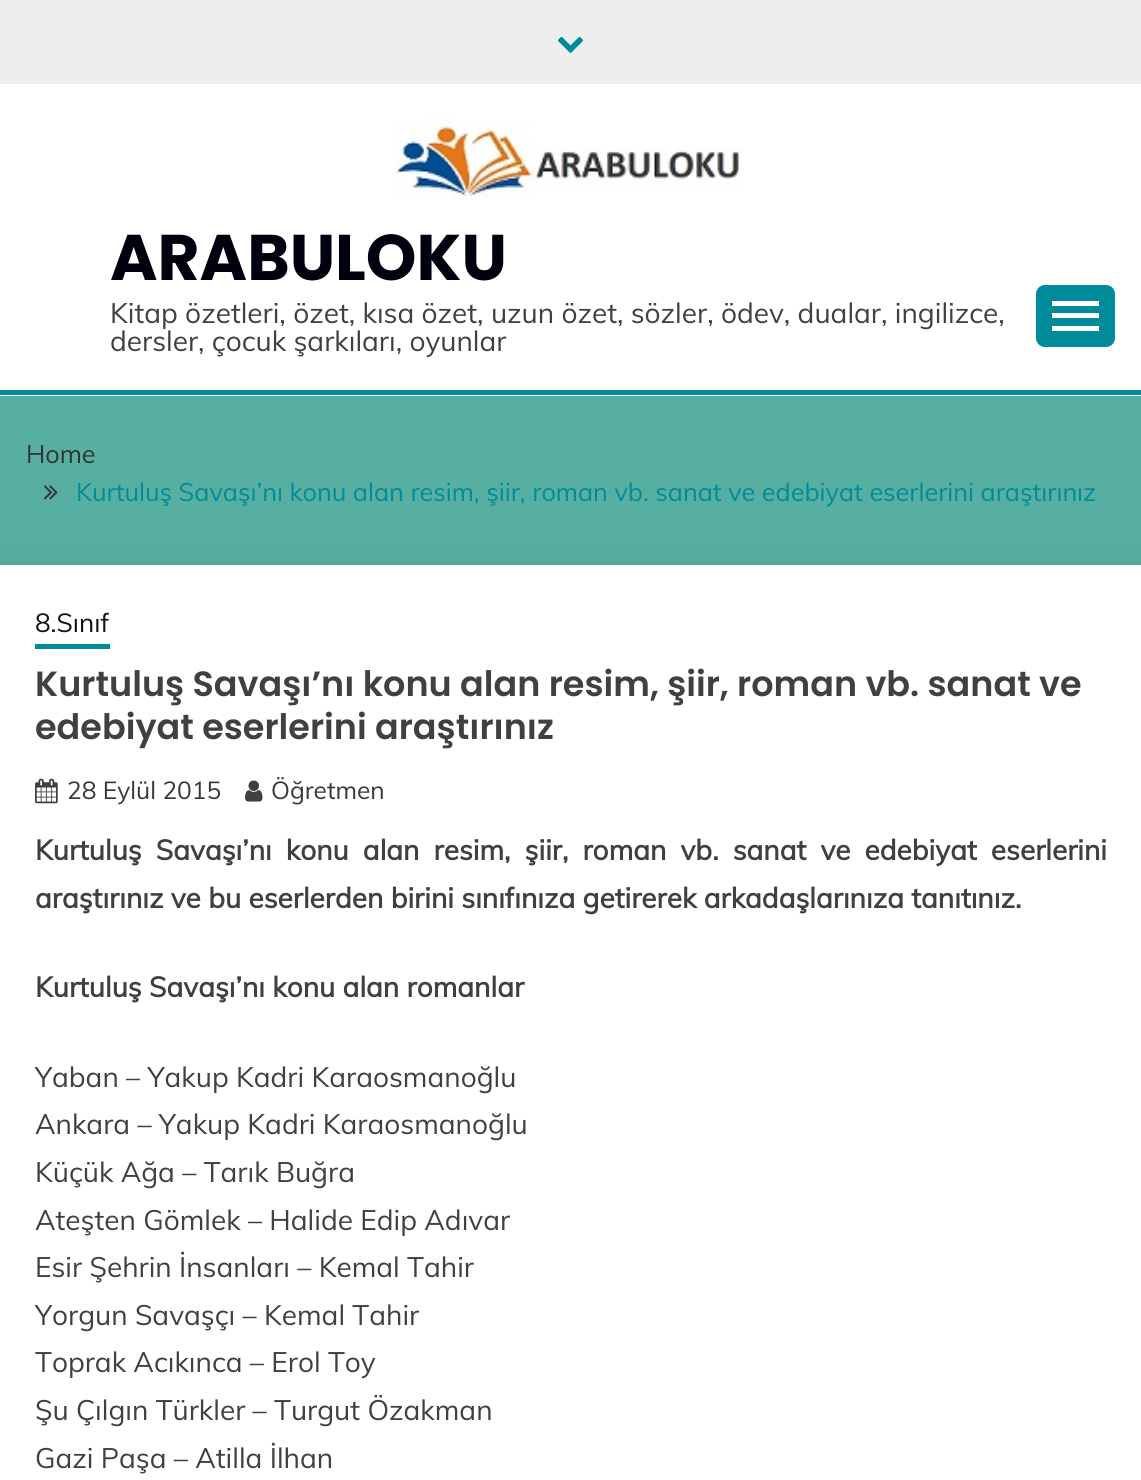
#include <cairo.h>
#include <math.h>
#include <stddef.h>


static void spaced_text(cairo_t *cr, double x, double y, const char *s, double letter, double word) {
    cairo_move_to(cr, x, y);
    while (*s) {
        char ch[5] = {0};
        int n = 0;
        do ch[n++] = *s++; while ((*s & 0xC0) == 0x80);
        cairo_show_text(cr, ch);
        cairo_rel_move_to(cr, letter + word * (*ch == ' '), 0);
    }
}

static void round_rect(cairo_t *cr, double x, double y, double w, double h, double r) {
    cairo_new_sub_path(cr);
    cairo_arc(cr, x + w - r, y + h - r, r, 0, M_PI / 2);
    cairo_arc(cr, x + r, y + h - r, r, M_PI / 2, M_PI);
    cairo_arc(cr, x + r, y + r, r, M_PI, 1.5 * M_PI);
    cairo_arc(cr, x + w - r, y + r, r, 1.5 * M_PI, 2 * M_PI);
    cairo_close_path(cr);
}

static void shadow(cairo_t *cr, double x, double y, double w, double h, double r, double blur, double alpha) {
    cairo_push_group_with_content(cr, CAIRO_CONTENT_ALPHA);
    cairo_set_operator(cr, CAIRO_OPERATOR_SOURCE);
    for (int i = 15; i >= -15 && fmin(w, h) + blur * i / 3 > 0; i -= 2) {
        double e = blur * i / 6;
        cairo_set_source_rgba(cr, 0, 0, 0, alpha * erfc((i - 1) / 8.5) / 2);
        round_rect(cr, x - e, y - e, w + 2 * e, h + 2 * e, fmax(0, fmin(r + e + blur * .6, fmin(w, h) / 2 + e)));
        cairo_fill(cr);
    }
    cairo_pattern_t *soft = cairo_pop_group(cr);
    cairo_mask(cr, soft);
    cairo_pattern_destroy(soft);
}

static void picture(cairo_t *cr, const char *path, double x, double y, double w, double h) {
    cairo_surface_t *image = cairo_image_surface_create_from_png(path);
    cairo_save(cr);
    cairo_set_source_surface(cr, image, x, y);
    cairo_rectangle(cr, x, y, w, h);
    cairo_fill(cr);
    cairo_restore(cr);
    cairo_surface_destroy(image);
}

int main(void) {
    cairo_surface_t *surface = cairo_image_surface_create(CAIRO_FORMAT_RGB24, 1141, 1480);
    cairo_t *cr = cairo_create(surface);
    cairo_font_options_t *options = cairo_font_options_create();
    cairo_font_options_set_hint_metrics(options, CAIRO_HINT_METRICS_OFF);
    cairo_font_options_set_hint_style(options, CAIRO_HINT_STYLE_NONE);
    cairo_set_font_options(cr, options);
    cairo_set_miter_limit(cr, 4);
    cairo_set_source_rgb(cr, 0.341, 0.686, 0.631);
    cairo_paint(cr);
    cairo_set_source_rgb(cr, 1, 1, 1);
    cairo_rectangle(cr, 0, 84, 1141, 312);
    cairo_fill(cr);
    cairo_set_source_rgb(cr, 0.933, 0.933, 0.933);
    cairo_rectangle(cr, 0, 0, 1141, 84);
    cairo_fill(cr);
    picture(cr, "img1.png", 557, 36, 27, 17);
    picture(cr, "img2.png", 395, 119, 349, 81);
    cairo_select_font_face(cr, "Poppins", CAIRO_FONT_SLANT_NORMAL, CAIRO_FONT_WEIGHT_BOLD);
    cairo_set_font_size(cr, 64.5);
    cairo_set_source_rgb(cr, 0, 0, 0.059);
    cairo_move_to(cr, 110, 280);
    cairo_show_text(cr, "ARABULOKU");
    cairo_select_font_face(cr, "Muli", CAIRO_FONT_SLANT_NORMAL, CAIRO_FONT_WEIGHT_NORMAL);
    cairo_set_font_size(cr, 28);
    cairo_set_source_rgb(cr, 0.251, 0.251, 0.251);
    cairo_move_to(cr, 110, 323);
    cairo_show_text(cr, "Kitap özetleri, özet, kısa özet, uzun özet, sözler, ödev, dualar, ingilizce,");
    cairo_move_to(cr, 110, 351);
    cairo_show_text(cr, "dersler, çocuk şarkıları, oyunlar");
    cairo_set_source_rgb(cr, 0, 0.545, 0.608);
    round_rect(cr, 1036, 285, 79, 62, 9);
    cairo_fill(cr);
    cairo_set_source_rgb(cr, 1, 1, 1);
    cairo_rectangle(cr, 1052, 301, 47, 5);
    cairo_fill(cr);
    cairo_rectangle(cr, 1052, 313, 47, 5);
    cairo_fill(cr);
    cairo_rectangle(cr, 1052, 326, 47, 5);
    cairo_fill(cr);
    cairo_set_source_rgb(cr, 0, 0.545, 0.608);
    cairo_rectangle(cr, 0, 390, 1141, 5);
    cairo_fill(cr);
    cairo_set_font_size(cr, 25.2);
    cairo_set_source_rgb(cr, 0.2, 0.2, 0.2);
    cairo_move_to(cr, 26, 463);
    cairo_show_text(cr, "Home");
    picture(cr, "img3.png", 44, 485, 14, 15);
    cairo_set_source_rgb(cr, 0, 0.545, 0.608);
    cairo_move_to(cr, 76, 501);
    cairo_show_text(cr, "Kurtuluş Savaşı’nı konu alan resim, şiir, roman vb. sanat ve edebiyat eserlerini araştırınız");
    cairo_set_source_rgb(cr, 0, 0, 0);
    shadow(cr, 4, 574, 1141, 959, 0, 17.5, 0.14);
    cairo_set_source_rgb(cr, 1, 1, 1);
    cairo_rectangle(cr, 0, 565, 1141, 915);
    cairo_fill(cr);
    cairo_set_font_size(cr, 26);
    cairo_set_source_rgb(cr, 0.078, 0.078, 0.075);
    cairo_move_to(cr, 35, 632);
    cairo_show_text(cr, "8.Sınıf");
    cairo_set_source_rgb(cr, 0, 0.545, 0.608);
    cairo_rectangle(cr, 35, 644, 75, 5);
    cairo_fill(cr);
    cairo_select_font_face(cr, "Poppins SemiBold", CAIRO_FONT_SLANT_NORMAL, CAIRO_FONT_WEIGHT_NORMAL);
    cairo_set_font_size(cr, 35);
    cairo_set_source_rgb(cr, 0.251, 0.251, 0.251);
    cairo_move_to(cr, 35, 696);
    cairo_show_text(cr, "Kurtuluş Savaşı’nı konu alan resim, şiir, roman vb. sanat ve");
    cairo_move_to(cr, 35, 739);
    cairo_show_text(cr, "edebiyat eserlerini araştırınız");
    picture(cr, "img4.png", 35, 778, 23, 26);
    cairo_select_font_face(cr, "Muli", CAIRO_FONT_SLANT_NORMAL, CAIRO_FONT_WEIGHT_NORMAL);
    cairo_set_font_size(cr, 24.5);
    cairo_set_source_rgb(cr, 0.216, 0.216, 0.247);
    cairo_move_to(cr, 67, 799);
    cairo_show_text(cr, "28 Eylül 2015");
    picture(cr, "img5.png", 245, 780, 18, 22);
    cairo_move_to(cr, 271, 799);
    cairo_show_text(cr, "Öğretmen");
    cairo_select_font_face(cr, "Muli", CAIRO_FONT_SLANT_NORMAL, CAIRO_FONT_WEIGHT_BOLD);
    cairo_set_font_size(cr, 28);
    cairo_set_source_rgb(cr, 0.251, 0.251, 0.251);
    spaced_text(cr, 35, 860, "Kurtuluş Savaşı’nı konu alan resim, şiir, roman vb. sanat ve edebiyat eserlerini", 0, 6.75);
    cairo_move_to(cr, 35, 908);
    cairo_show_text(cr, "araştırınız ve bu eserlerden birini sınıfınıza getirerek arkadaşlarınıza tanıtınız.");
    cairo_move_to(cr, 35, 997);
    cairo_show_text(cr, "Kurtuluş Savaşı’nı konu alan romanlar");
    cairo_select_font_face(cr, "Muli", CAIRO_FONT_SLANT_NORMAL, CAIRO_FONT_WEIGHT_NORMAL);
    cairo_move_to(cr, 35, 1087);
    cairo_show_text(cr, "Yaban – Yakup Kadri Karaosmanoğlu");
    cairo_move_to(cr, 35, 1134);
    cairo_show_text(cr, "Ankara – Yakup Kadri Karaosmanoğlu");
    cairo_move_to(cr, 35, 1182);
    cairo_show_text(cr, "Küçük Ağa – Tarık Buğra");
    cairo_move_to(cr, 35, 1230);
    cairo_show_text(cr, "Ateşten Gömlek – Halide Edip Adıvar");
    cairo_move_to(cr, 35, 1277);
    cairo_show_text(cr, "Esir Şehrin İnsanları – Kemal Tahir");
    cairo_move_to(cr, 35, 1325);
    cairo_show_text(cr, "Yorgun Savaşçı – Kemal Tahir");
    cairo_move_to(cr, 35, 1372);
    cairo_show_text(cr, "Toprak Acıkınca – Erol Toy");
    cairo_move_to(cr, 35, 1420);
    cairo_show_text(cr, "Şu Çılgın Türkler – Turgut Özakman");
    cairo_move_to(cr, 35, 1468);
    cairo_show_text(cr, "Gazi Paşa – Atilla İlhan");
    cairo_surface_write_to_png(surface, "page.png");
    cairo_font_options_destroy(options);
    cairo_destroy(cr);
    cairo_surface_destroy(surface);
    return 0;
}
